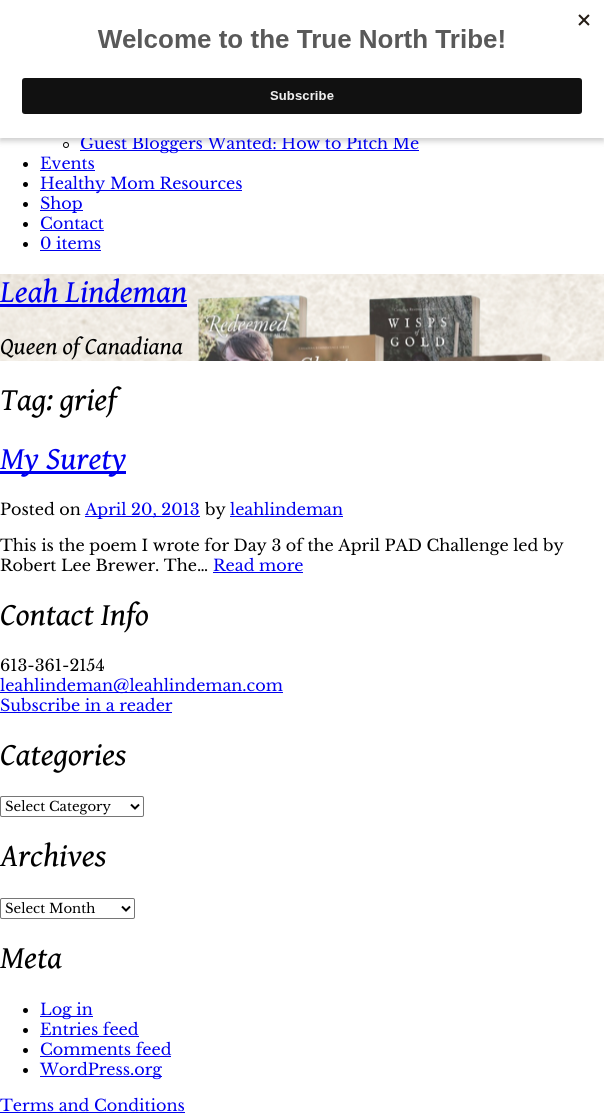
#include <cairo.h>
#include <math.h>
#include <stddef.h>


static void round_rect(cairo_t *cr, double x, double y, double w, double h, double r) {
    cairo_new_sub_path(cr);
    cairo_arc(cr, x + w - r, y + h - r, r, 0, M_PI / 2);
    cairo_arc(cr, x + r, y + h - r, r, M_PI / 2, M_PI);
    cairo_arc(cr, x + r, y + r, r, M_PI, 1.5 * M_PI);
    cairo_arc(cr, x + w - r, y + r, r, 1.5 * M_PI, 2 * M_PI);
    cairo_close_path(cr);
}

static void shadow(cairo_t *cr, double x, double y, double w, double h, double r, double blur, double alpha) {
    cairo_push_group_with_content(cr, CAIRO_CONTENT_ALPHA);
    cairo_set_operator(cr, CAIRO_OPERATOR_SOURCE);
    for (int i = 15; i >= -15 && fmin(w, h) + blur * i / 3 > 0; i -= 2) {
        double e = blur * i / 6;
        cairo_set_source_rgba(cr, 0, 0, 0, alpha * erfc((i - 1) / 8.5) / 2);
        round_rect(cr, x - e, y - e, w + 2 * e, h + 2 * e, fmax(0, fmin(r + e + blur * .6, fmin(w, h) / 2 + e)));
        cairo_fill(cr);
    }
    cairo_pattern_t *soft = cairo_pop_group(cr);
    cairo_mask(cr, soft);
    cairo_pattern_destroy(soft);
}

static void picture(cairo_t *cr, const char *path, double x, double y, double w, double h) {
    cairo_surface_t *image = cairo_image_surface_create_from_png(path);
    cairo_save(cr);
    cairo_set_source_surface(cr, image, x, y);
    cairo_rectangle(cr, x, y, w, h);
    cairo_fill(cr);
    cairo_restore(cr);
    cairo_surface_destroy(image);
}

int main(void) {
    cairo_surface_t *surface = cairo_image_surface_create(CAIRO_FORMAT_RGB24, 604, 1115);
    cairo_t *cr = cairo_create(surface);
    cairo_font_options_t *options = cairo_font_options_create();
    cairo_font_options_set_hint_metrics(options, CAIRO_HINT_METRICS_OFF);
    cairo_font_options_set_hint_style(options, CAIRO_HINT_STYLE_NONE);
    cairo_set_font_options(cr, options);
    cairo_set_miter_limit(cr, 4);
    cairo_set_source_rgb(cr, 1, 1, 1);
    cairo_paint(cr);
    cairo_arc(cr, 66, 145, 2.5, 0, 2 * M_PI);
    cairo_set_source_rgb(cr, 0, 0, 0);
    cairo_set_line_width(cr, 1);
    cairo_stroke(cr);
    cairo_set_source_rgb(cr, 0, 0, 0.933);
    cairo_rectangle(cr, 80, 150, 339, 1);
    cairo_fill(cr);
    cairo_set_source_rgb(cr, 0, 0, 0);
    shadow(cr, 0, 3, 604, 138, 0, 3, 0.2);
    cairo_select_font_face(cr, "Libre Baskerville", CAIRO_FONT_SLANT_NORMAL, CAIRO_FONT_WEIGHT_NORMAL);
    cairo_set_font_size(cr, 16);
    cairo_set_source_rgb(cr, 0, 0, 0.933);
    cairo_move_to(cr, 80, 149);
    cairo_show_text(cr, "Guest Bloggers Wanted: How to Pitch Me");
    cairo_set_source_rgb(cr, 1, 1, 1);
    cairo_rectangle(cr, 0, 0, 604, 138);
    cairo_fill(cr);
    picture(cr, "img1.png", 22, 14, 568, 100);
    cairo_set_source_rgb(cr, 0, 0, 0);
    cairo_arc(cr, 25.5, 164.5, 2.5, 0, 2 * M_PI);
    cairo_fill(cr);
    cairo_set_source_rgb(cr, 0, 0, 0.933);
    cairo_move_to(cr, 40, 169);
    cairo_show_text(cr, "Events");
    cairo_rectangle(cr, 40, 170, 55, 1);
    cairo_fill(cr);
    cairo_set_source_rgb(cr, 0, 0, 0);
    cairo_arc(cr, 25.5, 184.5, 2.5, 0, 2 * M_PI);
    cairo_fill(cr);
    cairo_set_source_rgb(cr, 0, 0, 0.933);
    cairo_rectangle(cr, 40, 190, 202, 1);
    cairo_fill(cr);
    cairo_move_to(cr, 40, 189);
    cairo_show_text(cr, "Healthy Mom Resources");
    cairo_set_source_rgb(cr, 0, 0, 0);
    cairo_new_path(cr);
    cairo_arc(cr, 25.5, 204.5, 2.5, 0, 2 * M_PI);
    cairo_fill(cr);
    cairo_set_source_rgb(cr, 0, 0, 0.933);
    cairo_rectangle(cr, 40, 210, 43, 1);
    cairo_fill(cr);
    cairo_move_to(cr, 40, 209);
    cairo_show_text(cr, "Shop");
    cairo_set_source_rgb(cr, 0, 0, 0);
    cairo_new_path(cr);
    cairo_arc(cr, 25.5, 224.5, 2.5, 0, 2 * M_PI);
    cairo_fill(cr);
    cairo_set_source_rgb(cr, 0, 0, 0.933);
    cairo_move_to(cr, 40, 229);
    cairo_show_text(cr, "Contact");
    cairo_rectangle(cr, 40, 230, 64, 1);
    cairo_fill(cr);
    cairo_set_source_rgb(cr, 0, 0, 0);
    cairo_arc(cr, 25.5, 244.5, 2.5, 0, 2 * M_PI);
    cairo_fill(cr);
    cairo_set_source_rgb(cr, 0, 0, 0.933);
    cairo_move_to(cr, 40, 249);
    cairo_show_text(cr, "0 items");
    cairo_rectangle(cr, 40, 250, 61, 1);
    cairo_fill(cr);
    picture(cr, "img2.png", 0, 274, 604, 87);
    cairo_select_font_face(cr, "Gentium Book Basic", CAIRO_FONT_SLANT_ITALIC, CAIRO_FONT_WEIGHT_NORMAL);
    cairo_set_font_size(cr, 32);
    cairo_move_to(cr, 0, 302);
    cairo_show_text(cr, "Leah Lindeman");
    cairo_rectangle(cr, 0, 304, 187, 3);
    cairo_fill(cr);
    cairo_set_font_size(cr, 24);
    cairo_set_source_rgb(cr, 0, 0, 0);
    cairo_move_to(cr, 0, 354);
    cairo_show_text(cr, "Queen of Canadiana");
    cairo_set_font_size(cr, 32);
    cairo_move_to(cr, 0, 410);
    cairo_show_text(cr, "Tag: grief");
    cairo_set_source_rgb(cr, 0, 0, 0.933);
    cairo_rectangle(cr, 0, 471, 126, 3);
    cairo_fill(cr);
    cairo_move_to(cr, 0, 469);
    cairo_show_text(cr, "My Surety");
    cairo_select_font_face(cr, "Libre Baskerville", CAIRO_FONT_SLANT_NORMAL, CAIRO_FONT_WEIGHT_NORMAL);
    cairo_set_font_size(cr, 16);
    cairo_set_source_rgb(cr, 0, 0, 0);
    cairo_move_to(cr, 0, 515);
    cairo_show_text(cr, "Posted on");
    cairo_set_source_rgb(cr, 0, 0, 0.933);
    cairo_rectangle(cr, 85, 516, 115, 1);
    cairo_fill(cr);
    cairo_move_to(cr, 85, 515);
    cairo_show_text(cr, "April 20, 2013");
    cairo_set_source_rgb(cr, 0, 0, 0);
    cairo_move_to(cr, 205, 515);
    cairo_show_text(cr, "by");
    cairo_set_source_rgb(cr, 0, 0, 0.933);
    cairo_rectangle(cr, 230, 516, 113, 1);
    cairo_fill(cr);
    cairo_move_to(cr, 230, 515);
    cairo_show_text(cr, "leahlindeman");
    cairo_set_source_rgb(cr, 0, 0, 0);
    cairo_move_to(cr, 0, 551);
    cairo_show_text(cr, "This is the poem I wrote for Day 3 of the April PAD Challenge led by");
    cairo_move_to(cr, 0, 571);
    cairo_show_text(cr, "Robert Lee Brewer. The…");
    cairo_set_source_rgb(cr, 0, 0, 0.933);
    cairo_move_to(cr, 213, 571);
    cairo_show_text(cr, "Read more");
    cairo_rectangle(cr, 213, 572, 90, 1);
    cairo_fill(cr);
    cairo_select_font_face(cr, "Gentium Book Basic", CAIRO_FONT_SLANT_ITALIC, CAIRO_FONT_WEIGHT_NORMAL);
    cairo_set_font_size(cr, 32);
    cairo_set_source_rgb(cr, 0, 0, 0);
    cairo_move_to(cr, 0, 625);
    cairo_show_text(cr, "Contact Info");
    cairo_select_font_face(cr, "Libre Baskerville", CAIRO_FONT_SLANT_NORMAL, CAIRO_FONT_WEIGHT_NORMAL);
    cairo_set_font_size(cr, 16);
    cairo_move_to(cr, 0, 671);
    cairo_show_text(cr, "613-361-2154");
    cairo_set_source_rgb(cr, 0, 0, 0.933);
    cairo_rectangle(cr, 0, 692, 283, 1);
    cairo_fill(cr);
    cairo_move_to(cr, 0, 691);
    cairo_show_text(cr, "leahlindeman@leahlindeman.com");
    cairo_move_to(cr, 0, 711);
    cairo_show_text(cr, "Subscribe in a reader");
    cairo_rectangle(cr, 0, 712, 172, 1);
    cairo_fill(cr);
    cairo_select_font_face(cr, "Gentium Book Basic", CAIRO_FONT_SLANT_ITALIC, CAIRO_FONT_WEIGHT_NORMAL);
    cairo_set_font_size(cr, 32);
    cairo_set_source_rgb(cr, 0, 0, 0);
    cairo_move_to(cr, 0, 765);
    cairo_show_text(cr, "Categories");
    round_rect(cr, 0.5, 796.5, 143, 20, 1.5);
    cairo_set_source_rgb(cr, 0.463, 0.463, 0.463);
    cairo_stroke(cr);
    cairo_new_path(cr);
    cairo_move_to(cr, 131, 804.5);
    cairo_line_to(cr, 135, 808.5);
    cairo_line_to(cr, 139, 804.5);
    cairo_set_source_rgb(cr, 0, 0, 0);
    cairo_set_line_width(cr, 2);
    cairo_stroke(cr);
    cairo_select_font_face(cr, "Libre Baskerville", CAIRO_FONT_SLANT_NORMAL, CAIRO_FONT_WEIGHT_NORMAL);
    cairo_set_font_size(cr, 13.25);
    cairo_move_to(cr, 5, 811);
    cairo_show_text(cr, "Select Category");
    cairo_select_font_face(cr, "Gentium Book Basic", CAIRO_FONT_SLANT_ITALIC, CAIRO_FONT_WEIGHT_NORMAL);
    cairo_set_font_size(cr, 32);
    cairo_move_to(cr, 0, 866);
    cairo_show_text(cr, "Archives");
    round_rect(cr, 0.5, 898.5, 134, 20, 1.5);
    cairo_set_source_rgb(cr, 0.463, 0.463, 0.463);
    cairo_set_line_width(cr, 1);
    cairo_stroke(cr);
    cairo_new_path(cr);
    cairo_move_to(cr, 122, 906.5);
    cairo_line_to(cr, 126, 910.5);
    cairo_line_to(cr, 130, 906.5);
    cairo_set_source_rgb(cr, 0, 0, 0);
    cairo_set_line_width(cr, 2);
    cairo_stroke(cr);
    cairo_select_font_face(cr, "Libre Baskerville", CAIRO_FONT_SLANT_NORMAL, CAIRO_FONT_WEIGHT_NORMAL);
    cairo_set_font_size(cr, 13.25);
    cairo_move_to(cr, 5, 913);
    cairo_show_text(cr, "Select Month");
    cairo_select_font_face(cr, "Gentium Book Basic", CAIRO_FONT_SLANT_ITALIC, CAIRO_FONT_WEIGHT_NORMAL);
    cairo_set_font_size(cr, 32);
    cairo_move_to(cr, 0, 968);
    cairo_show_text(cr, "Meta");
    cairo_new_path(cr);
    cairo_arc(cr, 25.5, 1010.5, 2.5, 0, 2 * M_PI);
    cairo_fill(cr);
    cairo_set_source_rgb(cr, 0, 0, 0.933);
    cairo_rectangle(cr, 40, 1016, 53, 1);
    cairo_fill(cr);
    cairo_select_font_face(cr, "Libre Baskerville", CAIRO_FONT_SLANT_NORMAL, CAIRO_FONT_WEIGHT_NORMAL);
    cairo_set_font_size(cr, 16);
    cairo_move_to(cr, 40, 1015);
    cairo_show_text(cr, "Log in");
    cairo_set_source_rgb(cr, 0, 0, 0);
    cairo_new_path(cr);
    cairo_arc(cr, 25.5, 1030.5, 2.5, 0, 2 * M_PI);
    cairo_fill(cr);
    cairo_set_source_rgb(cr, 0, 0, 0.933);
    cairo_move_to(cr, 40, 1035);
    cairo_show_text(cr, "Entries feed");
    cairo_rectangle(cr, 40, 1036, 99, 1);
    cairo_fill(cr);
    cairo_set_source_rgb(cr, 0, 0, 0);
    cairo_arc(cr, 25.5, 1050.5, 2.5, 0, 2 * M_PI);
    cairo_fill(cr);
    cairo_set_source_rgb(cr, 0, 0, 0.933);
    cairo_move_to(cr, 40, 1055);
    cairo_show_text(cr, "Comments feed");
    cairo_rectangle(cr, 40, 1056, 131, 1);
    cairo_fill(cr);
    cairo_set_source_rgb(cr, 0, 0, 0);
    cairo_arc(cr, 25.5, 1070.5, 2.5, 0, 2 * M_PI);
    cairo_fill(cr);
    cairo_set_source_rgb(cr, 0, 0, 0.933);
    cairo_rectangle(cr, 40, 1076, 122, 1);
    cairo_fill(cr);
    cairo_move_to(cr, 40, 1075);
    cairo_show_text(cr, "WordPress.org");
    cairo_move_to(cr, 0, 1111);
    cairo_show_text(cr, "Terms and Conditions");
    cairo_rectangle(cr, 0, 1112, 185, 1);
    cairo_fill(cr);
    cairo_surface_write_to_png(surface, "page.png");
    cairo_font_options_destroy(options);
    cairo_destroy(cr);
    cairo_surface_destroy(surface);
    return 0;
}
